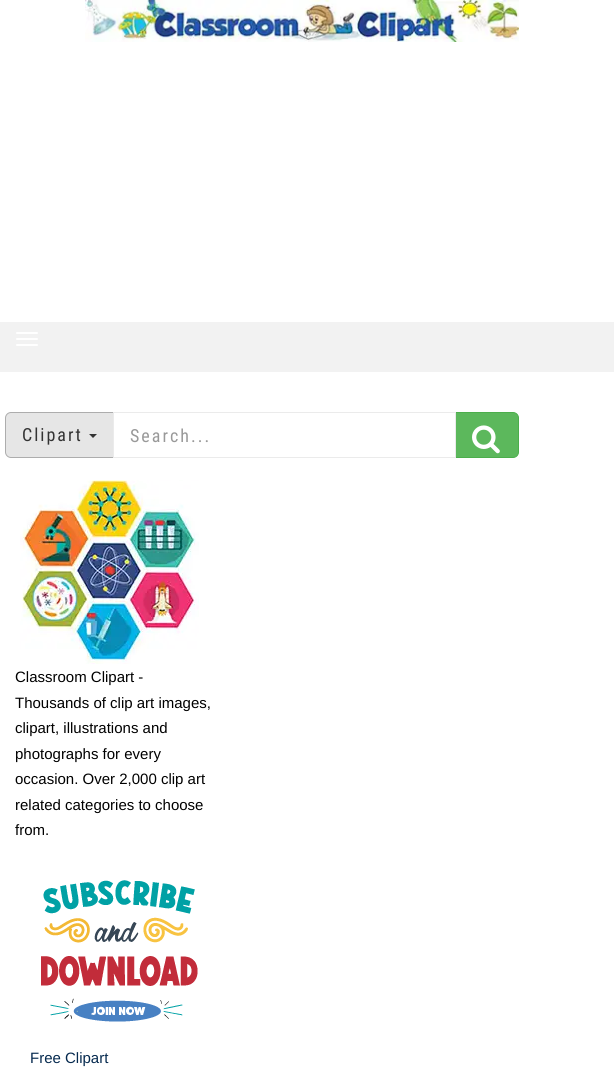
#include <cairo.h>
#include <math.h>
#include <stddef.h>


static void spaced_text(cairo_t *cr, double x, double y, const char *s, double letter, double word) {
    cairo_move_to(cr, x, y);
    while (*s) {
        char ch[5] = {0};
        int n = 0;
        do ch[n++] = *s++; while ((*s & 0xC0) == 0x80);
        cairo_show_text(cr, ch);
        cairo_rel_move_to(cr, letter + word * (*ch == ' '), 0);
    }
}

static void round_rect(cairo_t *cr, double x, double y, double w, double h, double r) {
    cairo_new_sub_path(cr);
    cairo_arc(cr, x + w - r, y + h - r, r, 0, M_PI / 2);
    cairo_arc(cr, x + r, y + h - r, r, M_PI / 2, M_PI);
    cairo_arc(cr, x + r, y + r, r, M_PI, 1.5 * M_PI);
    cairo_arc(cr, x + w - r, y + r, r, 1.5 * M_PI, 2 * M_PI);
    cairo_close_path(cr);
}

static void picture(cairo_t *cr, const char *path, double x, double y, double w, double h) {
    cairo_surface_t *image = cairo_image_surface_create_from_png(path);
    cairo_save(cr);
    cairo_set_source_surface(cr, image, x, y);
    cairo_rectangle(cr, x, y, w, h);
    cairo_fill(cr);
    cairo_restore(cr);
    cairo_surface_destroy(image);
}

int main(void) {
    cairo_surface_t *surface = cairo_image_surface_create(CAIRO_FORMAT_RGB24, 614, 1082);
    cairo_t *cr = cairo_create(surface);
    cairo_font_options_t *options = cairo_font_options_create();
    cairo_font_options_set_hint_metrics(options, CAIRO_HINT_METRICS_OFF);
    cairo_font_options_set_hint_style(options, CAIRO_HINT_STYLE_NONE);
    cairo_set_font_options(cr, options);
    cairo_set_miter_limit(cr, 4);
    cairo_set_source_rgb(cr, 1, 1, 1);
    cairo_paint(cr);
    picture(cr, "img1.png", 85, 0, 434, 42);
    cairo_set_source_rgb(cr, 0.949, 0.949, 0.949);
    cairo_rectangle(cr, 0, 322, 614, 50);
    cairo_fill(cr);
    cairo_set_source_rgb(cr, 1, 1, 1);
    round_rect(cr, 16, 332, 22, 2, 1);
    cairo_fill(cr);
    round_rect(cr, 16, 338, 22, 2, 1);
    cairo_fill(cr);
    round_rect(cr, 16, 344, 22, 2, 1);
    cairo_fill(cr);
    cairo_set_source_rgb(cr, 0.902, 0.902, 0.902);
    cairo_new_path(cr);
    cairo_move_to(cr, 11, 412.5);
    cairo_line_to(cr, 113.5, 412.5);
    cairo_line_to(cr, 113.5, 457.5);
    cairo_line_to(cr, 11, 457.5);
    cairo_curve_to(cr, 8, 457.5, 5.5, 455, 5.5, 452);
    cairo_line_to(cr, 5.5, 418);
    cairo_curve_to(cr, 5.5, 415, 8, 412.5, 11, 412.5);
    cairo_close_path(cr);
    cairo_fill_preserve(cr);
    cairo_set_source_rgb(cr, 0.678, 0.678, 0.678);
    cairo_set_line_width(cr, 1);
    cairo_stroke(cr);
    cairo_select_font_face(cr, "Roboto Condensed", CAIRO_FONT_SLANT_NORMAL, CAIRO_FONT_WEIGHT_NORMAL);
    cairo_set_font_size(cr, 18);
    cairo_set_source_rgb(cr, 0.2, 0.2, 0.2);
    spaced_text(cr, 22, 441, "Clipart", 2, 0);
    cairo_new_path(cr);
    cairo_move_to(cr, 89, 434);
    cairo_line_to(cr, 97, 434);
    cairo_line_to(cr, 93, 438);
    cairo_close_path(cr);
    cairo_fill(cr);
    cairo_set_source_rgb(cr, 0.361, 0.722, 0.361);
    cairo_new_path(cr);
    cairo_move_to(cr, 455.5, 412.5);
    cairo_line_to(cr, 513, 412.5);
    cairo_curve_to(cr, 516, 412.5, 518.5, 415, 518.5, 418);
    cairo_line_to(cr, 518.5, 452);
    cairo_curve_to(cr, 518.5, 455, 516, 457.5, 513, 457.5);
    cairo_line_to(cr, 455.5, 457.5);
    cairo_close_path(cr);
    cairo_fill_preserve(cr);
    cairo_set_source_rgb(cr, 0.298, 0.682, 0.298);
    cairo_stroke(cr);
    cairo_rectangle(cr, 113.5, 412.5, 342, 45);
    cairo_set_source_rgb(cr, 0.918, 0.918, 0.918);
    cairo_stroke(cr);
    cairo_set_source_rgb(cr, 0.6, 0.6, 0.6);
    spaced_text(cr, 130, 442, "Search...", 2, 0);
    picture(cr, "img2.png", 472, 425, 28, 29);
    picture(cr, "img3.png", 20, 480, 179, 184);
    cairo_select_font_face(cr, "Liberation Sans", CAIRO_FONT_SLANT_NORMAL, CAIRO_FONT_WEIGHT_NORMAL);
    cairo_set_font_size(cr, 15);
    cairo_set_source_rgb(cr, 0, 0, 0);
    cairo_move_to(cr, 15, 682);
    cairo_show_text(cr, "Classroom Clipart -");
    cairo_move_to(cr, 15, 708);
    cairo_show_text(cr, "Thousands of clip art images,");
    cairo_move_to(cr, 15, 733);
    cairo_show_text(cr, "clipart, illustrations and");
    cairo_move_to(cr, 15, 759);
    cairo_show_text(cr, "photographs for every");
    cairo_move_to(cr, 15, 784);
    cairo_show_text(cr, "occasion. Over 2,000 clip art");
    cairo_move_to(cr, 15, 810);
    cairo_show_text(cr, "related categories to choose");
    cairo_move_to(cr, 15, 835);
    cairo_show_text(cr, "from.");
    picture(cr, "img4.png", 41, 880, 157, 142);
    cairo_set_source_rgb(cr, 0.027, 0.165, 0.31);
    cairo_move_to(cr, 30, 1063);
    cairo_show_text(cr, "Free Clipart");
    cairo_surface_write_to_png(surface, "page.png");
    cairo_font_options_destroy(options);
    cairo_destroy(cr);
    cairo_surface_destroy(surface);
    return 0;
}
